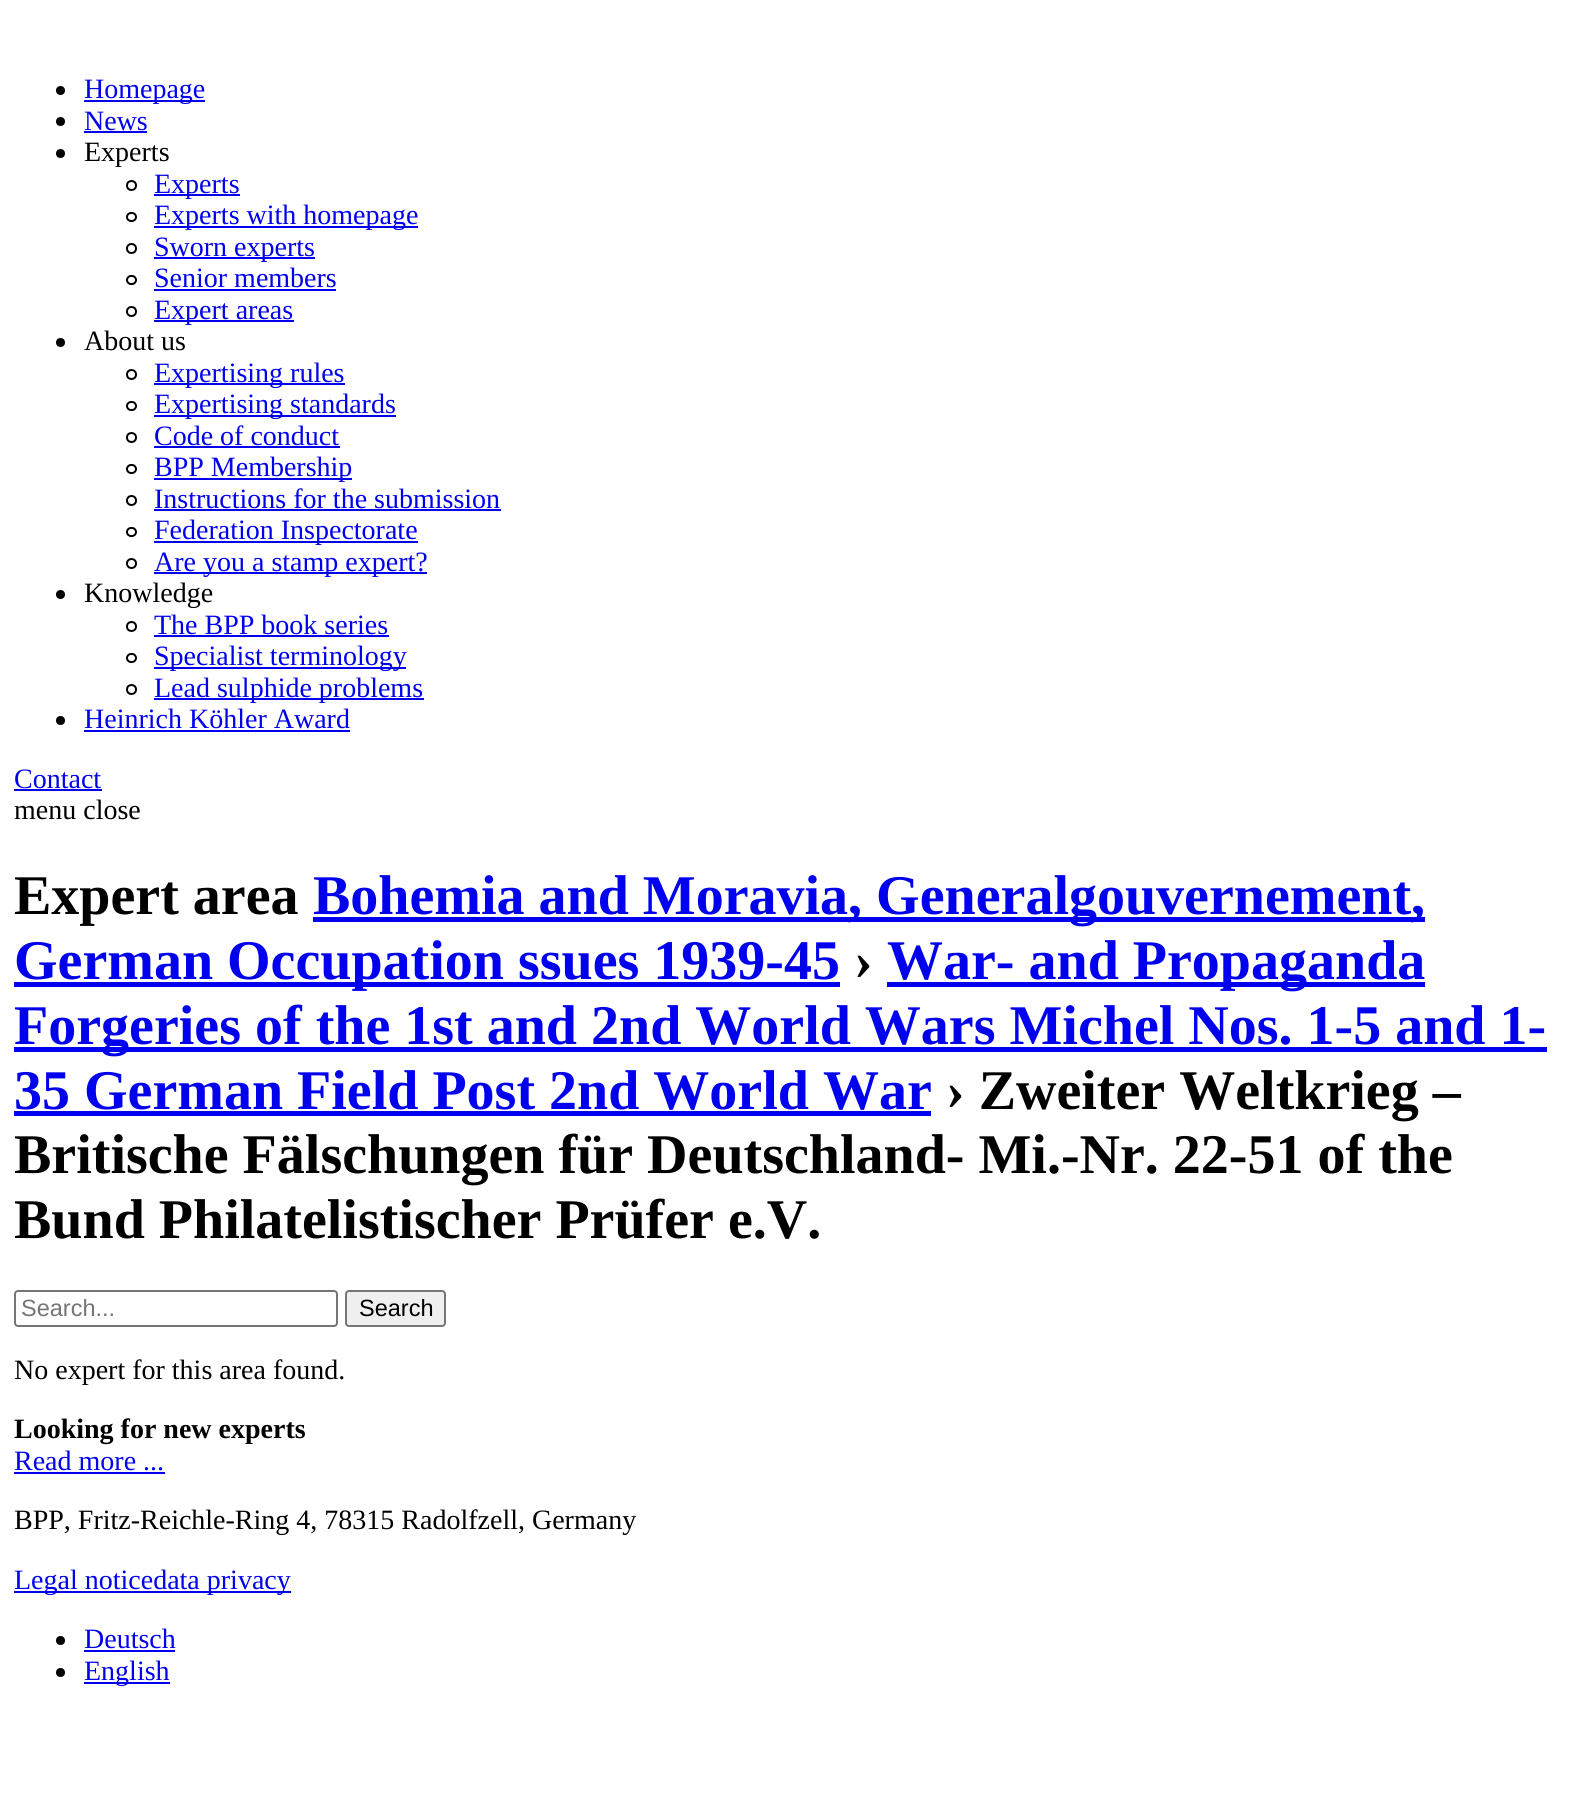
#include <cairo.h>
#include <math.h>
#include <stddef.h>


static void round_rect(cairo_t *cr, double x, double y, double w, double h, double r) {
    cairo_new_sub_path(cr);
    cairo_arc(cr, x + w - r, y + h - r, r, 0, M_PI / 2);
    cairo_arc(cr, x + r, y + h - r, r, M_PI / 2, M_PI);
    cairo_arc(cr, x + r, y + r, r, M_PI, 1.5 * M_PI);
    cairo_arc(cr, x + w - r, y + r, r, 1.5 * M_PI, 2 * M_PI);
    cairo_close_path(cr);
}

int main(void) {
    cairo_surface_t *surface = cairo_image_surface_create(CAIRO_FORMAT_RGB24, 1580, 1800);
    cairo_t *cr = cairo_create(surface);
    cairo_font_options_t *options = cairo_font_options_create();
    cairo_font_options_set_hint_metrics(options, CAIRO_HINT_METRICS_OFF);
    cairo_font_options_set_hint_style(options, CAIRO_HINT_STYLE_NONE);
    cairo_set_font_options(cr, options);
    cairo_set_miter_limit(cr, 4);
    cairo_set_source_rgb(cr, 1, 1, 1);
    cairo_paint(cr);
    cairo_set_source_rgb(cr, 0, 0, 0);
    cairo_arc(cr, 60.5, 90.5, 4.5, 0, 2 * M_PI);
    cairo_fill(cr);
    cairo_set_source_rgb(cr, 0, 0, 0.933);
    cairo_rectangle(cr, 84, 100, 121, 2);
    cairo_fill(cr);
    cairo_select_font_face(cr, "Liberation Serif", CAIRO_FONT_SLANT_NORMAL, CAIRO_FONT_WEIGHT_NORMAL);
    cairo_set_font_size(cr, 28);
    cairo_move_to(cr, 84, 98);
    cairo_show_text(cr, "Homepage");
    cairo_set_source_rgb(cr, 0, 0, 0);
    cairo_new_path(cr);
    cairo_arc(cr, 60.5, 121.5, 4.5, 0, 2 * M_PI);
    cairo_fill(cr);
    cairo_set_source_rgb(cr, 0, 0, 0.933);
    cairo_move_to(cr, 84, 130);
    cairo_show_text(cr, "News");
    cairo_rectangle(cr, 84, 131, 63, 2);
    cairo_fill(cr);
    cairo_set_source_rgb(cr, 0, 0, 0);
    cairo_arc(cr, 60.5, 153.5, 4.5, 0, 2 * M_PI);
    cairo_fill(cr);
    cairo_move_to(cr, 84, 161);
    cairo_show_text(cr, "Experts");
    cairo_new_path(cr);
    cairo_arc(cr, 131.5, 185.5, 4.5, 0, 2 * M_PI);
    cairo_stroke(cr);
    cairo_set_source_rgb(cr, 0, 0, 0.933);
    cairo_rectangle(cr, 154, 194, 86, 2);
    cairo_fill(cr);
    cairo_move_to(cr, 154, 193);
    cairo_show_text(cr, "Experts");
    round_rect(cr, 127, 213, 9, 8, 4);
    cairo_set_source_rgb(cr, 0, 0, 0);
    cairo_stroke(cr);
    cairo_set_source_rgb(cr, 0, 0, 0.933);
    cairo_rectangle(cr, 154, 226, 264, 2);
    cairo_fill(cr);
    cairo_move_to(cr, 154, 224);
    cairo_show_text(cr, "Experts with homepage");
    cairo_new_path(cr);
    cairo_arc(cr, 131.5, 248.5, 4.5, 0, 2 * M_PI);
    cairo_set_source_rgb(cr, 0, 0, 0);
    cairo_stroke(cr);
    cairo_set_source_rgb(cr, 0, 0, 0.933);
    cairo_rectangle(cr, 154, 257, 161, 2);
    cairo_fill(cr);
    cairo_move_to(cr, 154, 256);
    cairo_show_text(cr, "Sworn experts");
    round_rect(cr, 127, 276, 9, 8, 4);
    cairo_set_source_rgb(cr, 0, 0, 0);
    cairo_stroke(cr);
    cairo_set_source_rgb(cr, 0, 0, 0.933);
    cairo_move_to(cr, 154, 287);
    cairo_show_text(cr, "Senior members");
    cairo_rectangle(cr, 154, 289, 182, 2);
    cairo_fill(cr);
    cairo_arc(cr, 131.5, 311.5, 4.5, 0, 2 * M_PI);
    cairo_set_source_rgb(cr, 0, 0, 0);
    cairo_stroke(cr);
    cairo_set_source_rgb(cr, 0, 0, 0.933);
    cairo_rectangle(cr, 154, 320, 140, 2);
    cairo_fill(cr);
    cairo_move_to(cr, 154, 319);
    cairo_show_text(cr, "Expert areas");
    cairo_set_source_rgb(cr, 0, 0, 0);
    cairo_new_path(cr);
    cairo_arc(cr, 60.5, 342.5, 4.5, 0, 2 * M_PI);
    cairo_fill(cr);
    cairo_move_to(cr, 84, 350);
    cairo_show_text(cr, "About us");
    cairo_new_path(cr);
    cairo_arc(cr, 131.5, 374.5, 4.5, 0, 2 * M_PI);
    cairo_stroke(cr);
    cairo_set_source_rgb(cr, 0, 0, 0.933);
    cairo_rectangle(cr, 154, 383, 191, 2);
    cairo_fill(cr);
    cairo_move_to(cr, 154, 382);
    cairo_show_text(cr, "Expertising rules");
    round_rect(cr, 127, 402, 9, 8, 4);
    cairo_set_source_rgb(cr, 0, 0, 0);
    cairo_stroke(cr);
    cairo_set_source_rgb(cr, 0, 0, 0.933);
    cairo_rectangle(cr, 154, 415, 242, 2);
    cairo_fill(cr);
    cairo_move_to(cr, 154, 413);
    cairo_show_text(cr, "Expertising standards");
    cairo_new_path(cr);
    cairo_arc(cr, 131.5, 437.5, 4.5, 0, 2 * M_PI);
    cairo_set_source_rgb(cr, 0, 0, 0);
    cairo_stroke(cr);
    cairo_set_source_rgb(cr, 0, 0, 0.933);
    cairo_move_to(cr, 154, 445);
    cairo_show_text(cr, "Code of conduct");
    cairo_rectangle(cr, 154, 446, 186, 2);
    cairo_fill(cr);
    round_rect(cr, 127, 465, 9, 8, 4);
    cairo_set_source_rgb(cr, 0, 0, 0);
    cairo_stroke(cr);
    cairo_set_source_rgb(cr, 0, 0, 0.933);
    cairo_rectangle(cr, 154, 478, 198, 2);
    cairo_fill(cr);
    cairo_move_to(cr, 154, 476);
    cairo_show_text(cr, "BPP Membership");
    cairo_new_path(cr);
    cairo_arc(cr, 131.5, 500.5, 4.5, 0, 2 * M_PI);
    cairo_set_source_rgb(cr, 0, 0, 0);
    cairo_stroke(cr);
    cairo_set_source_rgb(cr, 0, 0, 0.933);
    cairo_move_to(cr, 154, 508);
    cairo_show_text(cr, "Instructions for the submission");
    cairo_rectangle(cr, 154, 509, 347, 2);
    cairo_fill(cr);
    round_rect(cr, 127, 528, 9, 8, 4);
    cairo_set_source_rgb(cr, 0, 0, 0);
    cairo_stroke(cr);
    cairo_set_source_rgb(cr, 0, 0, 0.933);
    cairo_rectangle(cr, 154, 541, 264, 2);
    cairo_fill(cr);
    cairo_move_to(cr, 154, 539);
    cairo_show_text(cr, "Federation Inspectorate");
    cairo_new_path(cr);
    cairo_arc(cr, 131.5, 563.5, 4.5, 0, 2 * M_PI);
    cairo_set_source_rgb(cr, 0, 0, 0);
    cairo_stroke(cr);
    cairo_set_source_rgb(cr, 0, 0, 0.933);
    cairo_rectangle(cr, 154, 572, 273, 2);
    cairo_fill(cr);
    cairo_move_to(cr, 154, 571);
    cairo_show_text(cr, "Are you a stamp expert?");
    cairo_set_source_rgb(cr, 0, 0, 0);
    cairo_new_path(cr);
    cairo_arc(cr, 60.5, 594.5, 4.5, 0, 2 * M_PI);
    cairo_fill(cr);
    cairo_move_to(cr, 84, 602);
    cairo_show_text(cr, "Knowledge");
    cairo_new_path(cr);
    cairo_arc(cr, 131.5, 626.5, 4.5, 0, 2 * M_PI);
    cairo_stroke(cr);
    cairo_set_source_rgb(cr, 0, 0, 0.933);
    cairo_move_to(cr, 154, 634);
    cairo_show_text(cr, "The BPP book series");
    cairo_rectangle(cr, 154, 635, 235, 2);
    cairo_fill(cr);
    round_rect(cr, 127, 654, 9, 8, 4);
    cairo_set_source_rgb(cr, 0, 0, 0);
    cairo_stroke(cr);
    cairo_set_source_rgb(cr, 0, 0, 0.933);
    cairo_rectangle(cr, 154, 667, 252, 2);
    cairo_fill(cr);
    cairo_move_to(cr, 154, 665);
    cairo_show_text(cr, "Specialist terminology");
    cairo_new_path(cr);
    cairo_arc(cr, 131.5, 689.5, 4.5, 0, 2 * M_PI);
    cairo_set_source_rgb(cr, 0, 0, 0);
    cairo_stroke(cr);
    cairo_set_source_rgb(cr, 0, 0, 0.933);
    cairo_rectangle(cr, 154, 698, 270, 2);
    cairo_fill(cr);
    cairo_move_to(cr, 154, 697);
    cairo_show_text(cr, "Lead sulphide problems");
    cairo_set_source_rgb(cr, 0, 0, 0);
    cairo_new_path(cr);
    cairo_arc(cr, 60.5, 720.5, 4.5, 0, 2 * M_PI);
    cairo_fill(cr);
    cairo_set_source_rgb(cr, 0, 0, 0.933);
    cairo_move_to(cr, 84, 728);
    cairo_show_text(cr, "Heinrich Köhler Award");
    cairo_rectangle(cr, 84, 730, 266, 2);
    cairo_fill(cr);
    cairo_move_to(cr, 14, 788);
    cairo_show_text(cr, "Contact");
    cairo_rectangle(cr, 14, 789, 88, 2);
    cairo_fill(cr);
    cairo_set_source_rgb(cr, 0, 0, 0);
    cairo_move_to(cr, 14, 819);
    cairo_show_text(cr, "menu close");
    cairo_select_font_face(cr, "Liberation Serif", CAIRO_FONT_SLANT_NORMAL, CAIRO_FONT_WEIGHT_BOLD);
    cairo_set_font_size(cr, 56);
    cairo_move_to(cr, 14, 914);
    cairo_show_text(cr, "Expert area");
    cairo_set_source_rgb(cr, 0, 0, 0.933);
    cairo_rectangle(cr, 313, 917, 1112, 5);
    cairo_fill(cr);
    cairo_move_to(cr, 313, 914);
    cairo_show_text(cr, "Bohemia and Moravia, Generalgouvernement,");
    cairo_rectangle(cr, 14, 982, 826, 5);
    cairo_fill(cr);
    cairo_move_to(cr, 14, 979);
    cairo_show_text(cr, "German Occupation ssues 1939-45");
    cairo_set_source_rgb(cr, 0, 0, 0);
    cairo_move_to(cr, 854, 979);
    cairo_show_text(cr, "›");
    cairo_set_source_rgb(cr, 0, 0, 0.933);
    cairo_rectangle(cr, 887, 982, 538, 5);
    cairo_fill(cr);
    cairo_move_to(cr, 887, 979);
    cairo_show_text(cr, "War- and Propaganda");
    cairo_rectangle(cr, 14, 1047, 1533, 5);
    cairo_fill(cr);
    cairo_move_to(cr, 14, 1044);
    cairo_show_text(cr, "Forgeries of the 1st and 2nd World Wars Michel Nos. 1-5 and 1-");
    cairo_move_to(cr, 14, 1109);
    cairo_show_text(cr, "35 German Field Post 2nd World War");
    cairo_rectangle(cr, 14, 1111, 917, 5);
    cairo_fill(cr);
    cairo_set_source_rgb(cr, 0, 0, 0);
    cairo_move_to(cr, 946, 1109);
    cairo_show_text(cr, "› Zweiter Weltkrieg –");
    cairo_move_to(cr, 14, 1173);
    cairo_show_text(cr, "Britische Fälschungen für Deutschland- Mi.-Nr. 22-51 of the");
    cairo_move_to(cr, 14, 1238);
    cairo_show_text(cr, "Bund Philatelistischer Prüfer e.V.");
    round_rect(cr, 15, 1291, 322, 35, 3);
    cairo_set_source_rgb(cr, 0.463, 0.463, 0.463);
    cairo_stroke(cr);
    cairo_select_font_face(cr, "Liberation Sans", CAIRO_FONT_SLANT_NORMAL, CAIRO_FONT_WEIGHT_NORMAL);
    cairo_set_font_size(cr, 23.5);
    cairo_set_source_rgb(cr, 0.459, 0.459, 0.459);
    cairo_move_to(cr, 21, 1316);
    cairo_show_text(cr, "Search...");
    cairo_set_source_rgb(cr, 0.937, 0.937, 0.937);
    round_rect(cr, 346, 1291, 99, 35, 3);
    cairo_fill_preserve(cr);
    cairo_set_source_rgb(cr, 0.463, 0.463, 0.463);
    cairo_stroke(cr);
    cairo_set_source_rgb(cr, 0, 0, 0);
    cairo_move_to(cr, 359, 1316);
    cairo_show_text(cr, "Search");
    cairo_select_font_face(cr, "Liberation Serif", CAIRO_FONT_SLANT_NORMAL, CAIRO_FONT_WEIGHT_NORMAL);
    cairo_set_font_size(cr, 28);
    cairo_move_to(cr, 14, 1379);
    cairo_show_text(cr, "No expert for this area found.");
    cairo_select_font_face(cr, "Liberation Serif", CAIRO_FONT_SLANT_NORMAL, CAIRO_FONT_WEIGHT_BOLD);
    cairo_move_to(cr, 14, 1438);
    cairo_show_text(cr, "Looking for new experts");
    cairo_select_font_face(cr, "Liberation Serif", CAIRO_FONT_SLANT_NORMAL, CAIRO_FONT_WEIGHT_NORMAL);
    cairo_set_source_rgb(cr, 0, 0, 0.933);
    cairo_move_to(cr, 14, 1470);
    cairo_show_text(cr, "Read more ...");
    cairo_rectangle(cr, 14, 1472, 151, 2);
    cairo_fill(cr);
    cairo_set_source_rgb(cr, 0, 0, 0);
    cairo_move_to(cr, 14, 1529);
    cairo_show_text(cr, "BPP, Fritz-Reichle-Ring 4, 78315 Radolfzell, Germany");
    cairo_set_source_rgb(cr, 0, 0, 0.933);
    cairo_rectangle(cr, 14, 1591, 277, 2);
    cairo_fill(cr);
    cairo_move_to(cr, 14, 1589);
    cairo_show_text(cr, "Legal noticedata privacy");
    cairo_set_source_rgb(cr, 0, 0, 0);
    cairo_new_path(cr);
    cairo_arc(cr, 60.5, 1640.5, 4.5, 0, 2 * M_PI);
    cairo_fill(cr);
    cairo_set_source_rgb(cr, 0, 0, 0.933);
    cairo_move_to(cr, 84, 1648);
    cairo_show_text(cr, "Deutsch");
    cairo_rectangle(cr, 84, 1650, 91, 2);
    cairo_fill(cr);
    cairo_set_source_rgb(cr, 0, 0, 0);
    cairo_arc(cr, 60.5, 1672.5, 4.5, 0, 2 * M_PI);
    cairo_fill(cr);
    cairo_set_source_rgb(cr, 0, 0, 0.933);
    cairo_rectangle(cr, 84, 1682, 86, 2);
    cairo_fill(cr);
    cairo_move_to(cr, 84, 1680);
    cairo_show_text(cr, "English");
    cairo_surface_write_to_png(surface, "page.png");
    cairo_font_options_destroy(options);
    cairo_destroy(cr);
    cairo_surface_destroy(surface);
    return 0;
}
